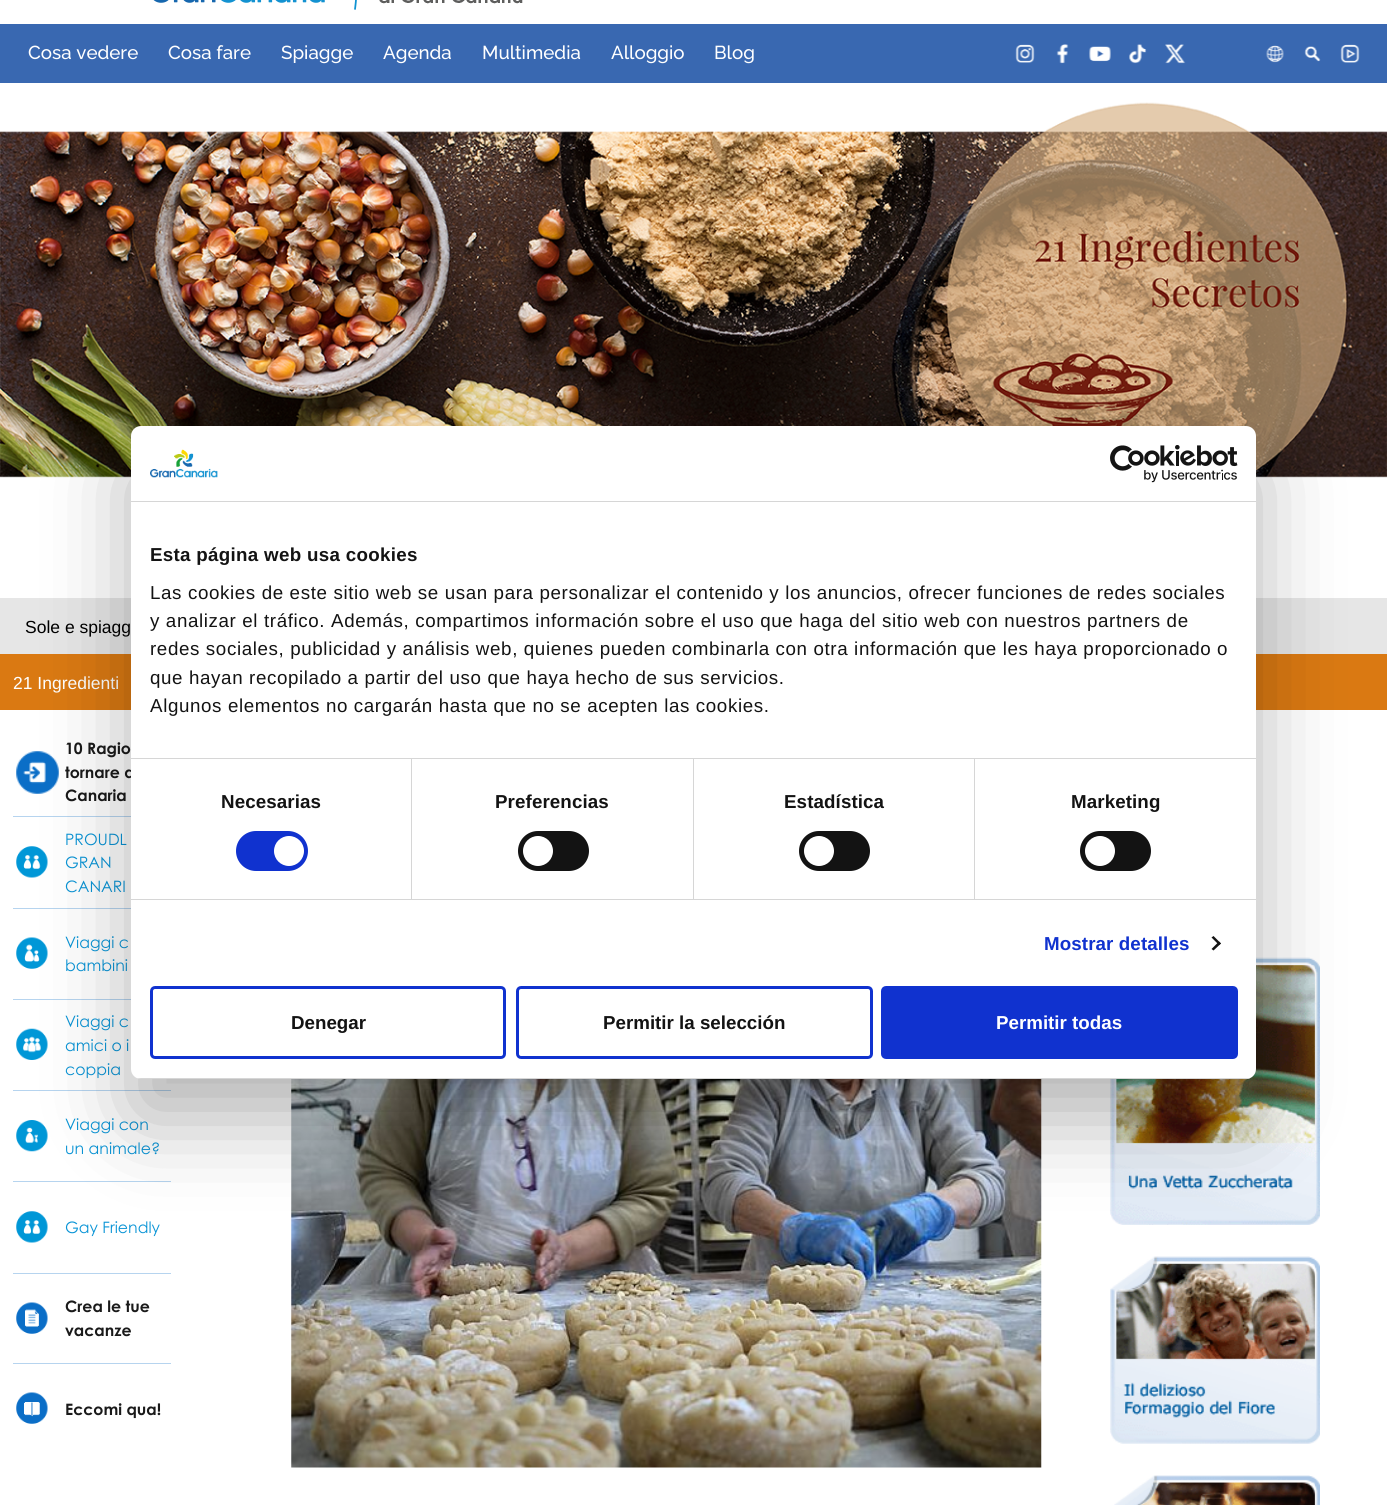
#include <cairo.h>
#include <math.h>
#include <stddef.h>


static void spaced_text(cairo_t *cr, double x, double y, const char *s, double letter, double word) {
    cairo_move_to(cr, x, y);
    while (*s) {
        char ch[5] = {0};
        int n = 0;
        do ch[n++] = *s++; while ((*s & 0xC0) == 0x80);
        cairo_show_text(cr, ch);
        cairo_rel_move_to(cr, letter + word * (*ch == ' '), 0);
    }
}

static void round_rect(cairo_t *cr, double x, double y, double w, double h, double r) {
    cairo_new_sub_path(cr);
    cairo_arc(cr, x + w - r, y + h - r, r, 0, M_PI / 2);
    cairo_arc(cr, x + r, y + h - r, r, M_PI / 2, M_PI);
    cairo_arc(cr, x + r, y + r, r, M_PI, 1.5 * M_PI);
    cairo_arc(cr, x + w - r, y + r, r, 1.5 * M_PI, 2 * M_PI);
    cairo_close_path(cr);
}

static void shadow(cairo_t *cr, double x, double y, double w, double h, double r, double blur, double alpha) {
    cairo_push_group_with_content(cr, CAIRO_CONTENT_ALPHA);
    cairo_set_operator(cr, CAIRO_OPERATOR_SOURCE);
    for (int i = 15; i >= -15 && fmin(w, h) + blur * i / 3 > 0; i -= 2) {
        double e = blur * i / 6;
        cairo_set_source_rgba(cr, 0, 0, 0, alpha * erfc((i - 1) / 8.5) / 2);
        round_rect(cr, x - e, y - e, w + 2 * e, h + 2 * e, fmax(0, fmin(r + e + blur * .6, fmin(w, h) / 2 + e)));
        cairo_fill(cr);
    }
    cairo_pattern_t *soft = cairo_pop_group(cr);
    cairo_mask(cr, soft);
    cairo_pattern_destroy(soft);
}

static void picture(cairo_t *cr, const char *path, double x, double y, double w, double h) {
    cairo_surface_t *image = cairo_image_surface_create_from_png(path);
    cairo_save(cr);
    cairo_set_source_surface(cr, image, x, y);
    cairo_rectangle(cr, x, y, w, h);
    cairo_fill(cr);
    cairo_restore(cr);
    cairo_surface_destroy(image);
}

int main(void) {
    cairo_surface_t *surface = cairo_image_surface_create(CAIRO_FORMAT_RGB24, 1387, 1505);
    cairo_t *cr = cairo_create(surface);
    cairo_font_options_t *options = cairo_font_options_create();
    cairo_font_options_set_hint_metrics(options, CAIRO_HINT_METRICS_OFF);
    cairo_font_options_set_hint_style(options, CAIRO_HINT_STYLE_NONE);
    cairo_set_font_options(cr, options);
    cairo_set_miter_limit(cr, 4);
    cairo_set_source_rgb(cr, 1, 1, 1);
    cairo_paint(cr);
    picture(cr, "img1.png", 153, 0, 370, 10);
    cairo_set_source_rgb(cr, 0.224, 0.408, 0.694);
    cairo_rectangle(cr, 0, 24, 1387, 59);
    cairo_fill(cr);
    cairo_select_font_face(cr, "Raleway Medium", CAIRO_FONT_SLANT_NORMAL, CAIRO_FONT_WEIGHT_NORMAL);
    cairo_set_font_size(cr, 18.75);
    cairo_set_source_rgb(cr, 1, 1, 1);
    cairo_move_to(cr, 28, 59);
    cairo_show_text(cr, "Cosa vedere");
    cairo_move_to(cr, 168, 59);
    cairo_show_text(cr, "Cosa fare");
    cairo_move_to(cr, 281, 59);
    cairo_show_text(cr, "Spiagge");
    cairo_move_to(cr, 383, 59);
    cairo_show_text(cr, "Agenda");
    cairo_move_to(cr, 482, 59);
    cairo_show_text(cr, "Multimedia");
    cairo_move_to(cr, 611, 59);
    cairo_show_text(cr, "Alloggio");
    cairo_move_to(cr, 714, 59);
    cairo_show_text(cr, "Blog");
    picture(cr, "img2.png", 1015, 44, 20, 19);
    picture(cr, "img3.png", 1056, 44, 13, 20);
    picture(cr, "img4.png", 1089, 46, 22, 16);
    picture(cr, "img5.png", 1129, 44, 18, 20);
    picture(cr, "img6.png", 1165, 44, 21, 20);
    picture(cr, "img7.png", 1266, 45, 18, 18);
    picture(cr, "img8.png", 1304, 46, 17, 16);
    picture(cr, "img9.png", 1340, 44, 20, 19);
    picture(cr, "img10.png", 0, 102, 1387, 376);
    cairo_set_source_rgb(cr, 0.902, 0.902, 0.902);
    cairo_rectangle(cr, 0, 598, 1387, 56);
    cairo_fill(cr);
    cairo_select_font_face(cr, "Liberation Sans", CAIRO_FONT_SLANT_NORMAL, CAIRO_FONT_WEIGHT_NORMAL);
    cairo_set_font_size(cr, 17.5);
    cairo_set_source_rgb(cr, 0, 0, 0);
    cairo_move_to(cr, 25, 633);
    cairo_show_text(cr, "Sole e spiagg");
    cairo_set_source_rgb(cr, 0.855, 0.475, 0.071);
    cairo_rectangle(cr, 0, 654, 1387, 56);
    cairo_fill(cr);
    cairo_set_source_rgb(cr, 1, 1, 1);
    cairo_move_to(cr, 13, 689);
    cairo_show_text(cr, "21 Ingredienti");
    picture(cr, "img11.png", 16, 751, 43, 43);
    cairo_set_source_rgb(cr, 0.714, 0.831, 0.937);
    cairo_rectangle(cr, 13, 816, 118, 1);
    cairo_fill(cr);
    cairo_select_font_face(cr, "Century Gothic", CAIRO_FONT_SLANT_NORMAL, CAIRO_FONT_WEIGHT_BOLD);
    cairo_set_font_size(cr, 15.75);
    cairo_set_source_rgb(cr, 0.102, 0.102, 0.102);
    cairo_move_to(cr, 65, 754);
    cairo_show_text(cr, "10 Ragio");
    cairo_move_to(cr, 65, 778);
    cairo_show_text(cr, "tornare a");
    cairo_move_to(cr, 65, 801);
    cairo_show_text(cr, "Canaria");
    picture(cr, "img12.png", 16, 846, 32, 32);
    cairo_set_source_rgb(cr, 0.714, 0.831, 0.937);
    cairo_rectangle(cr, 13, 908, 118, 1);
    cairo_fill(cr);
    cairo_select_font_face(cr, "Century Gothic", CAIRO_FONT_SLANT_NORMAL, CAIRO_FONT_WEIGHT_NORMAL);
    cairo_set_source_rgb(cr, 0.039, 0.58, 0.839);
    cairo_move_to(cr, 65, 845);
    cairo_show_text(cr, "PROUDL");
    cairo_move_to(cr, 65, 868);
    cairo_show_text(cr, "GRAN");
    cairo_move_to(cr, 65, 892);
    cairo_show_text(cr, "CANARI");
    picture(cr, "img13.png", 16, 937, 32, 32);
    cairo_set_source_rgb(cr, 0.714, 0.831, 0.937);
    cairo_rectangle(cr, 13, 999, 118, 1);
    cairo_fill(cr);
    cairo_set_source_rgb(cr, 0.039, 0.58, 0.839);
    cairo_move_to(cr, 65, 948);
    cairo_show_text(cr, "Viaggi c");
    cairo_move_to(cr, 65, 971);
    cairo_show_text(cr, "bambini");
    picture(cr, "img14.png", 16, 1028, 32, 32);
    cairo_set_source_rgb(cr, 0.714, 0.831, 0.937);
    cairo_rectangle(cr, 13, 1090, 158, 1);
    cairo_fill(cr);
    cairo_set_source_rgb(cr, 0.039, 0.58, 0.839);
    cairo_move_to(cr, 65, 1027);
    cairo_show_text(cr, "Viaggi c");
    cairo_move_to(cr, 65, 1051);
    cairo_show_text(cr, "amici o i");
    cairo_move_to(cr, 65, 1075);
    cairo_show_text(cr, "coppia");
    picture(cr, "img15.png", 16, 1120, 32, 32);
    cairo_set_source_rgb(cr, 0.714, 0.831, 0.937);
    cairo_rectangle(cr, 13, 1181, 158, 1);
    cairo_fill(cr);
    cairo_set_source_rgb(cr, 0.039, 0.58, 0.839);
    cairo_move_to(cr, 65, 1130);
    cairo_show_text(cr, "Viaggi con");
    cairo_move_to(cr, 65, 1154);
    cairo_show_text(cr, "un animale?");
    picture(cr, "img12.png", 16, 1211, 32, 32);
    cairo_set_source_rgb(cr, 0.714, 0.831, 0.937);
    cairo_rectangle(cr, 13, 1273, 158, 1);
    cairo_fill(cr);
    cairo_set_source_rgb(cr, 0.039, 0.58, 0.839);
    cairo_move_to(cr, 65, 1233);
    cairo_show_text(cr, "Gay Friendly");
    picture(cr, "img16.png", 16, 1302, 32, 32);
    cairo_set_source_rgb(cr, 0.714, 0.831, 0.937);
    cairo_rectangle(cr, 13, 1363, 158, 1);
    cairo_fill(cr);
    cairo_select_font_face(cr, "Century Gothic", CAIRO_FONT_SLANT_NORMAL, CAIRO_FONT_WEIGHT_BOLD);
    cairo_set_source_rgb(cr, 0.102, 0.102, 0.102);
    cairo_move_to(cr, 65, 1312);
    cairo_show_text(cr, "Crea le tue");
    cairo_move_to(cr, 65, 1336);
    cairo_show_text(cr, "vacanze");
    picture(cr, "img17.png", 16, 1392, 32, 32);
    cairo_move_to(cr, 65, 1415);
    cairo_show_text(cr, "Eccomi qua!");
    picture(cr, "img18.png", 291, 1079, 751, 389);
    picture(cr, "img19.png", 1110, 957, 210, 268);
    picture(cr, "img20.png", 1110, 1256, 210, 188);
    picture(cr, "img21.png", 1114, 1475, 206, 30);
    cairo_set_source_rgb(cr, 0, 0, 0);
    shadow(cr, 131, 466, 1125, 653, 10, 42.5, 0.3);
    cairo_set_source_rgb(cr, 1, 1, 1);
    round_rect(cr, 131, 426, 1125, 653, 10);
    cairo_fill(cr);
    cairo_set_source_rgb(cr, 0.839, 0.839, 0.839);
    cairo_rectangle(cr, 131, 501, 1125, 1);
    cairo_fill(cr);
    picture(cr, "img22.png", 150, 449, 68, 29);
    picture(cr, "img23.png", 1110, 445, 128, 38);
    cairo_rectangle(cr, 131, 758, 1125, 1);
    cairo_fill(cr);
    cairo_select_font_face(cr, "Liberation Sans", CAIRO_FONT_SLANT_NORMAL, CAIRO_FONT_WEIGHT_BOLD);
    cairo_set_font_size(cr, 18.75);
    cairo_set_source_rgb(cr, 0.078, 0.078, 0.078);
    spaced_text(cr, 150, 561, "Esta página web usa cookies", 0.3, 0);
    cairo_select_font_face(cr, "Liberation Sans", CAIRO_FONT_SLANT_NORMAL, CAIRO_FONT_WEIGHT_NORMAL);
    spaced_text(cr, 150, 599, "Las cookies de este sitio web se usan para personalizar el contenido y los anuncios, ofrecer funciones de redes sociales", 0.62, 0);
    spaced_text(cr, 150, 627, "y analizar el tráfico. Además, compartimos información sobre el uso que haga del sitio web con nuestros partners de", 0.62, 0);
    spaced_text(cr, 150, 655, "redes sociales, publicidad y análisis web, quienes pueden combinarla con otra información que les haya proporcionado o", 0.62, 0);
    spaced_text(cr, 150, 684, "que hayan recopilado a partir del uso que haya hecho de sus servicios.", 0.62, 0);
    spaced_text(cr, 150, 712, "Algunos elementos no cargarán hasta que no se acepten las cookies.", 0.62, 0);
    cairo_set_source_rgb(cr, 0.839, 0.839, 0.839);
    cairo_rectangle(cr, 131, 899, 1125, 1);
    cairo_fill(cr);
    cairo_rectangle(cr, 411, 759, 1, 140);
    cairo_fill(cr);
    cairo_select_font_face(cr, "Liberation Sans", CAIRO_FONT_SLANT_NORMAL, CAIRO_FONT_WEIGHT_BOLD);
    cairo_set_source_rgb(cr, 0.078, 0.078, 0.078);
    spaced_text(cr, 221, 808, "Necesarias", 0.1, 0);
    cairo_set_source_rgb(cr, 0.063, 0.196, 0.812);
    round_rect(cr, 236, 831, 72, 40, 20);
    cairo_fill(cr);
    cairo_set_source_rgb(cr, 1, 1, 1);
    cairo_arc(cr, 289, 851, 15, 0, 2 * M_PI);
    cairo_fill(cr);
    cairo_set_source_rgb(cr, 0.839, 0.839, 0.839);
    cairo_rectangle(cr, 693, 759, 1, 140);
    cairo_fill(cr);
    cairo_set_source_rgb(cr, 0.078, 0.078, 0.078);
    spaced_text(cr, 495, 808, "Preferencias", 0.1, 0);
    round_rect(cr, 518, 831, 71, 40, 20);
    cairo_fill(cr);
    cairo_set_source_rgb(cr, 1, 1, 1);
    cairo_arc(cr, 538, 851, 15, 0, 2 * M_PI);
    cairo_fill(cr);
    cairo_set_source_rgb(cr, 0.839, 0.839, 0.839);
    cairo_rectangle(cr, 974, 759, 1, 140);
    cairo_fill(cr);
    cairo_set_source_rgb(cr, 0.078, 0.078, 0.078);
    spaced_text(cr, 784, 808, "Estadística", 0.1, 0);
    round_rect(cr, 799, 831, 71, 40, 20);
    cairo_fill(cr);
    cairo_set_source_rgb(cr, 1, 1, 1);
    cairo_arc(cr, 819, 851, 15, 0, 2 * M_PI);
    cairo_fill(cr);
    cairo_set_source_rgb(cr, 0.078, 0.078, 0.078);
    spaced_text(cr, 1071, 808, "Marketing", 0.1, 0);
    round_rect(cr, 1080, 831, 71, 40, 20);
    cairo_fill(cr);
    cairo_set_source_rgb(cr, 1, 1, 1);
    cairo_arc(cr, 1100, 851, 15, 0, 2 * M_PI);
    cairo_fill(cr);
    cairo_set_source_rgb(cr, 0.063, 0.196, 0.812);
    spaced_text(cr, 1044, 950, "Mostrar detalles", 0.1, 0);
    cairo_set_source_rgb(cr, 0.078, 0.078, 0.078);
    cairo_new_path(cr);
    cairo_move_to(cr, 1213.5, 936);
    cairo_line_to(cr, 1221, 943.5);
    cairo_line_to(cr, 1219, 945);
    cairo_line_to(cr, 1211.5, 937.5);
    cairo_close_path(cr);
    cairo_fill(cr);
    cairo_new_path(cr);
    cairo_move_to(cr, 1219, 941.5);
    cairo_line_to(cr, 1221, 943.5);
    cairo_line_to(cr, 1213.5, 950.5);
    cairo_line_to(cr, 1211.5, 949);
    cairo_close_path(cr);
    cairo_fill(cr);
    cairo_save(cr);
    round_rect(cr, 131, 426, 1125, 653, 10);
    cairo_clip(cr);
    cairo_set_source_rgb(cr, 0.839, 0.839, 0.839);
    cairo_rectangle(cr, 131, 1078, 1125, 1);
    cairo_fill(cr);
    cairo_restore(cr);
    round_rect(cr, 151.5, 987.5, 353, 70, 3.5);
    cairo_set_source_rgb(cr, 0.063, 0.196, 0.812);
    cairo_set_line_width(cr, 3);
    cairo_stroke(cr);
    cairo_set_source_rgb(cr, 0.078, 0.078, 0.078);
    cairo_move_to(cr, 291, 1029);
    cairo_show_text(cr, "Denegar");
    round_rect(cr, 517.5, 987.5, 354, 70, 3.5);
    cairo_set_source_rgb(cr, 0.063, 0.196, 0.812);
    cairo_stroke(cr);
    cairo_set_source_rgb(cr, 0.078, 0.078, 0.078);
    cairo_move_to(cr, 603, 1029);
    cairo_show_text(cr, "Permitir la selección");
    cairo_set_source_rgb(cr, 0.063, 0.196, 0.812);
    round_rect(cr, 882.5, 987.5, 354, 70, 3.5);
    cairo_fill_preserve(cr);
    cairo_stroke(cr);
    cairo_set_source_rgb(cr, 1, 1, 1);
    cairo_move_to(cr, 996, 1029);
    cairo_show_text(cr, "Permitir todas");
    cairo_surface_write_to_png(surface, "page.png");
    cairo_font_options_destroy(options);
    cairo_destroy(cr);
    cairo_surface_destroy(surface);
    return 0;
}
